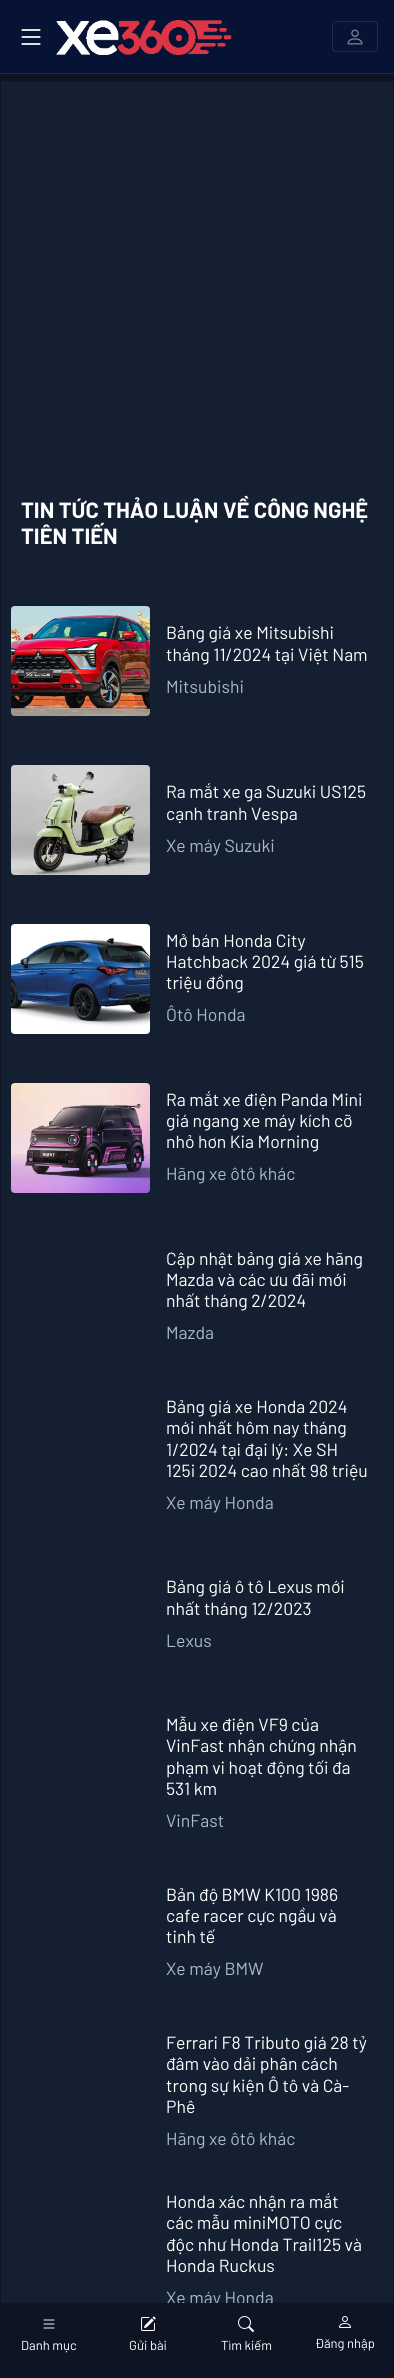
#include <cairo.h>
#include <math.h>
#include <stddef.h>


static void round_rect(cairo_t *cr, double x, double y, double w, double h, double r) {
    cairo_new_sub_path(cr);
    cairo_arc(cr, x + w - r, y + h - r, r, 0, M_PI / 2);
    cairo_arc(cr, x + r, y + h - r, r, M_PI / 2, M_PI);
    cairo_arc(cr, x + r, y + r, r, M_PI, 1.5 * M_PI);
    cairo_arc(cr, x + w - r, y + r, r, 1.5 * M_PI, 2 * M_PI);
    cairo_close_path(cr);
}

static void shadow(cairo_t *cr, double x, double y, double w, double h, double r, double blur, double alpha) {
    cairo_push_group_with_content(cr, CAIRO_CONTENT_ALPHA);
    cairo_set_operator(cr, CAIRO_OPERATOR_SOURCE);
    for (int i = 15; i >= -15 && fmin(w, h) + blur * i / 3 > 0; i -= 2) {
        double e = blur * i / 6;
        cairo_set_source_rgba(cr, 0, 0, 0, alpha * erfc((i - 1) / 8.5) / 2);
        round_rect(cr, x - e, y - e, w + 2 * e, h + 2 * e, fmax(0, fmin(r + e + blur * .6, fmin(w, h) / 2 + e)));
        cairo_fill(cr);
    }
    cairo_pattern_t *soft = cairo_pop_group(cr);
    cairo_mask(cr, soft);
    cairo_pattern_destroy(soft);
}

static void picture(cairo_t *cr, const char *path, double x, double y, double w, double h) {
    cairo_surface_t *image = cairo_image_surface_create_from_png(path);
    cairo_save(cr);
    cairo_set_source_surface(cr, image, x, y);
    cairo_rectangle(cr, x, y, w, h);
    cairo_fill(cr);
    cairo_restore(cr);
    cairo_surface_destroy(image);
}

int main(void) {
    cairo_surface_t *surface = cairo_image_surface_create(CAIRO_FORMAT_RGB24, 394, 2378);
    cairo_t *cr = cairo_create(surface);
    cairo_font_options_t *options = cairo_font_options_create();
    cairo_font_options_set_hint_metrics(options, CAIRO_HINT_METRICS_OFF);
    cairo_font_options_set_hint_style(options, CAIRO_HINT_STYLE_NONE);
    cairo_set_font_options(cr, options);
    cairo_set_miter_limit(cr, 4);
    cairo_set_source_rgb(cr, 0.055, 0.082, 0.137);
    cairo_paint(cr);
    cairo_set_source_rgb(cr, 0.024, 0.078, 0.208);
    cairo_rectangle(cr, 0, 0, 394, 73);
    cairo_fill(cr);
    cairo_set_source_rgb(cr, 0.141, 0.176, 0.239);
    cairo_rectangle(cr, 0, 73, 394, 1);
    cairo_fill(cr);
    picture(cr, "img1.png", 21, 29, 20, 16);
    picture(cr, "img2.png", 56, 20, 176, 35);
    round_rect(cr, 332.5, 21.5, 45, 30, 3.5);
    cairo_set_source_rgb(cr, 0.122, 0.173, 0.286);
    cairo_set_line_width(cr, 1);
    cairo_stroke(cr);
    picture(cr, "img3.png", 347, 29, 16, 16);
    cairo_set_source_rgb(cr, 0.082, 0.122, 0.192);
    cairo_rectangle(cr, 1, 82, 392, 2221);
    cairo_fill(cr);
    cairo_set_source_rgb(cr, 0.071, 0.106, 0.169);
    cairo_rectangle(cr, 1, 81, 392, 1);
    cairo_fill(cr);
    cairo_select_font_face(cr, "Barlow", CAIRO_FONT_SLANT_NORMAL, CAIRO_FONT_WEIGHT_BOLD);
    cairo_set_font_size(cr, 22);
    cairo_set_source_rgb(cr, 1, 1, 1);
    cairo_move_to(cr, 21, 518);
    cairo_show_text(cr, "TIN TỨC THẢO LUẬN VỀ CÔNG NGHỆ");
    cairo_move_to(cr, 21, 544);
    cairo_show_text(cr, "TIÊN TIẾN");
    cairo_set_source_rgb(cr, 0.075, 0.11, 0.173);
    cairo_rectangle(cr, 21, 565, 352, 1);
    cairo_fill(cr);
    picture(cr, "img4.png", 11, 606, 139, 110);
    cairo_select_font_face(cr, "Barlow", CAIRO_FONT_SLANT_NORMAL, CAIRO_FONT_WEIGHT_NORMAL);
    cairo_set_font_size(cr, 17.6);
    cairo_set_source_rgb(cr, 1, 1, 1);
    cairo_move_to(cr, 166, 639);
    cairo_show_text(cr, "Bảng giá xe Mitsubishi");
    cairo_move_to(cr, 166, 661);
    cairo_show_text(cr, "tháng 11/2024 tại Việt Nam");
    cairo_set_source_rgb(cr, 0.643, 0.733, 0.804);
    cairo_move_to(cr, 166, 693);
    cairo_show_text(cr, "Mitsubishi");
    cairo_set_source_rgb(cr, 0.075, 0.11, 0.173);
    cairo_rectangle(cr, 11, 740, 372, 1);
    cairo_fill(cr);
    picture(cr, "img5.png", 11, 765, 139, 110);
    cairo_set_source_rgb(cr, 1, 1, 1);
    cairo_move_to(cr, 166, 798);
    cairo_show_text(cr, "Ra mắt xe ga Suzuki US125");
    cairo_move_to(cr, 166, 820);
    cairo_show_text(cr, "cạnh tranh Vespa");
    cairo_set_source_rgb(cr, 0.643, 0.733, 0.804);
    cairo_move_to(cr, 166, 852);
    cairo_show_text(cr, "Xe máy Suzuki");
    cairo_set_source_rgb(cr, 0.075, 0.11, 0.173);
    cairo_rectangle(cr, 11, 899, 372, 1);
    cairo_fill(cr);
    picture(cr, "img6.png", 11, 924, 139, 110);
    cairo_set_source_rgb(cr, 1, 1, 1);
    cairo_move_to(cr, 166, 947);
    cairo_show_text(cr, "Mở bán Honda City");
    cairo_move_to(cr, 166, 968);
    cairo_show_text(cr, "Hatchback 2024 giá từ 515");
    cairo_move_to(cr, 166, 989);
    cairo_show_text(cr, "triệu đồng");
    cairo_set_source_rgb(cr, 0.643, 0.733, 0.804);
    cairo_move_to(cr, 166, 1021);
    cairo_show_text(cr, "Ôtô Honda");
    cairo_set_source_rgb(cr, 0.075, 0.11, 0.173);
    cairo_rectangle(cr, 11, 1058, 372, 1);
    cairo_fill(cr);
    picture(cr, "img7.png", 11, 1083, 139, 110);
    cairo_set_source_rgb(cr, 1, 1, 1);
    cairo_move_to(cr, 166, 1106);
    cairo_show_text(cr, "Ra mắt xe điện Panda Mini");
    cairo_move_to(cr, 166, 1127);
    cairo_show_text(cr, "giá ngang xe máy kích cỡ");
    cairo_move_to(cr, 166, 1148);
    cairo_show_text(cr, "nhỏ hơn Kia Morning");
    cairo_set_source_rgb(cr, 0.643, 0.733, 0.804);
    cairo_move_to(cr, 166, 1180);
    cairo_show_text(cr, "Hãng xe ôtô khác");
    cairo_set_source_rgb(cr, 0.075, 0.11, 0.173);
    cairo_rectangle(cr, 11, 1217, 372, 1);
    cairo_fill(cr);
    cairo_set_source_rgb(cr, 1, 1, 1);
    cairo_move_to(cr, 166, 1265);
    cairo_show_text(cr, "Cập nhật bảng giá xe hãng");
    cairo_move_to(cr, 166, 1286);
    cairo_show_text(cr, "Mazda và các ưu đãi mới");
    cairo_move_to(cr, 166, 1307);
    cairo_show_text(cr, "nhất tháng 2/2024");
    cairo_set_source_rgb(cr, 0.643, 0.733, 0.804);
    cairo_move_to(cr, 166, 1339);
    cairo_show_text(cr, "Mazda");
    cairo_set_source_rgb(cr, 0.075, 0.11, 0.173);
    cairo_rectangle(cr, 11, 1376, 372, 1);
    cairo_fill(cr);
    cairo_set_source_rgb(cr, 1, 1, 1);
    cairo_move_to(cr, 166, 1413);
    cairo_show_text(cr, "Bảng giá xe Honda 2024");
    cairo_move_to(cr, 166, 1434);
    cairo_show_text(cr, "mới nhất hôm nay tháng");
    cairo_move_to(cr, 166, 1456);
    cairo_show_text(cr, "1/2024 tại đại lý: Xe SH");
    cairo_move_to(cr, 166, 1477);
    cairo_show_text(cr, "125i 2024 cao nhất 98 triệu");
    cairo_set_source_rgb(cr, 0.643, 0.733, 0.804);
    cairo_move_to(cr, 166, 1509);
    cairo_show_text(cr, "Xe máy Honda");
    cairo_set_source_rgb(cr, 0.075, 0.11, 0.173);
    cairo_rectangle(cr, 11, 1535, 372, 1);
    cairo_fill(cr);
    cairo_set_source_rgb(cr, 1, 1, 1);
    cairo_move_to(cr, 166, 1593);
    cairo_show_text(cr, "Bảng giá ô tô Lexus mới");
    cairo_move_to(cr, 166, 1615);
    cairo_show_text(cr, "nhất tháng 12/2023");
    cairo_set_source_rgb(cr, 0.643, 0.733, 0.804);
    cairo_move_to(cr, 166, 1647);
    cairo_show_text(cr, "Lexus");
    cairo_set_source_rgb(cr, 0.075, 0.11, 0.173);
    cairo_rectangle(cr, 11, 1694, 372, 1);
    cairo_fill(cr);
    cairo_set_source_rgb(cr, 1, 1, 1);
    cairo_move_to(cr, 166, 1731);
    cairo_show_text(cr, "Mẫu xe điện VF9 của");
    cairo_move_to(cr, 166, 1752);
    cairo_show_text(cr, "VinFast nhận chứng nhận");
    cairo_move_to(cr, 166, 1774);
    cairo_show_text(cr, "phạm vi hoạt động tối đa");
    cairo_move_to(cr, 166, 1795);
    cairo_show_text(cr, "531 km");
    cairo_set_source_rgb(cr, 0.643, 0.733, 0.804);
    cairo_move_to(cr, 166, 1827);
    cairo_show_text(cr, "VinFast");
    cairo_set_source_rgb(cr, 0.075, 0.11, 0.173);
    cairo_rectangle(cr, 11, 1853, 372, 1);
    cairo_fill(cr);
    cairo_set_source_rgb(cr, 1, 1, 1);
    cairo_move_to(cr, 166, 1901);
    cairo_show_text(cr, "Bản độ BMW K100 1986");
    cairo_move_to(cr, 166, 1922);
    cairo_show_text(cr, "cafe racer cực ngầu và");
    cairo_move_to(cr, 166, 1943);
    cairo_show_text(cr, "tinh tế");
    cairo_set_source_rgb(cr, 0.643, 0.733, 0.804);
    cairo_move_to(cr, 166, 1975);
    cairo_show_text(cr, "Xe máy BMW");
    cairo_set_source_rgb(cr, 0.075, 0.11, 0.173);
    cairo_rectangle(cr, 11, 2012, 372, 1);
    cairo_fill(cr);
    cairo_set_source_rgb(cr, 1, 1, 1);
    cairo_move_to(cr, 166, 2049);
    cairo_show_text(cr, "Ferrari F8 Tributo giá 28 tỷ");
    cairo_move_to(cr, 166, 2070);
    cairo_show_text(cr, "đâm vào dải phân cách");
    cairo_move_to(cr, 166, 2092);
    cairo_show_text(cr, "trong sự kiện Ô tô và Cà-");
    cairo_move_to(cr, 166, 2113);
    cairo_show_text(cr, "Phê");
    cairo_set_source_rgb(cr, 0.643, 0.733, 0.804);
    cairo_move_to(cr, 166, 2145);
    cairo_show_text(cr, "Hãng xe ôtô khác");
    cairo_set_source_rgb(cr, 0.075, 0.11, 0.173);
    cairo_rectangle(cr, 11, 2171, 372, 1);
    cairo_fill(cr);
    cairo_set_source_rgb(cr, 1, 1, 1);
    cairo_move_to(cr, 166, 2208);
    cairo_show_text(cr, "Honda xác nhận ra mắt");
    cairo_move_to(cr, 166, 2229);
    cairo_show_text(cr, "các mẫu miniMOTO cực");
    cairo_move_to(cr, 166, 2251);
    cairo_show_text(cr, "độc như Honda Trail125 và");
    cairo_move_to(cr, 166, 2272);
    cairo_show_text(cr, "Honda Ruckus");
    cairo_set_source_rgb(cr, 0.643, 0.733, 0.804);
    cairo_move_to(cr, 166, 2304);
    cairo_show_text(cr, "Xe máy Honda");
    cairo_set_source_rgb(cr, 0, 0, 0);
    shadow(cr, 0, 2304, 394, 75, 0, 2.5, 0.2);
    cairo_set_source_rgb(cr, 0.055, 0.082, 0.137);
    cairo_rectangle(cr, 0, 2303, 394, 75);
    cairo_fill(cr);
    picture(cr, "img8.png", 43, 2319, 12, 10);
    cairo_set_font_size(cr, 13);
    cairo_set_source_rgb(cr, 1, 1, 1);
    cairo_move_to(cr, 21, 2350);
    cairo_show_text(cr, "Danh mục");
    picture(cr, "img9.png", 141, 2316, 15, 15);
    cairo_move_to(cr, 129, 2350);
    cairo_show_text(cr, "Gửi bài");
    picture(cr, "img10.png", 238, 2316, 16, 16);
    cairo_move_to(cr, 221, 2350);
    cairo_show_text(cr, "Tìm kiếm");
    picture(cr, "img11.png", 339, 2316, 12, 12);
    cairo_move_to(cr, 315, 2348);
    cairo_show_text(cr, "Đăng nhập");
    cairo_surface_write_to_png(surface, "page.png");
    cairo_font_options_destroy(options);
    cairo_destroy(cr);
    cairo_surface_destroy(surface);
    return 0;
}
